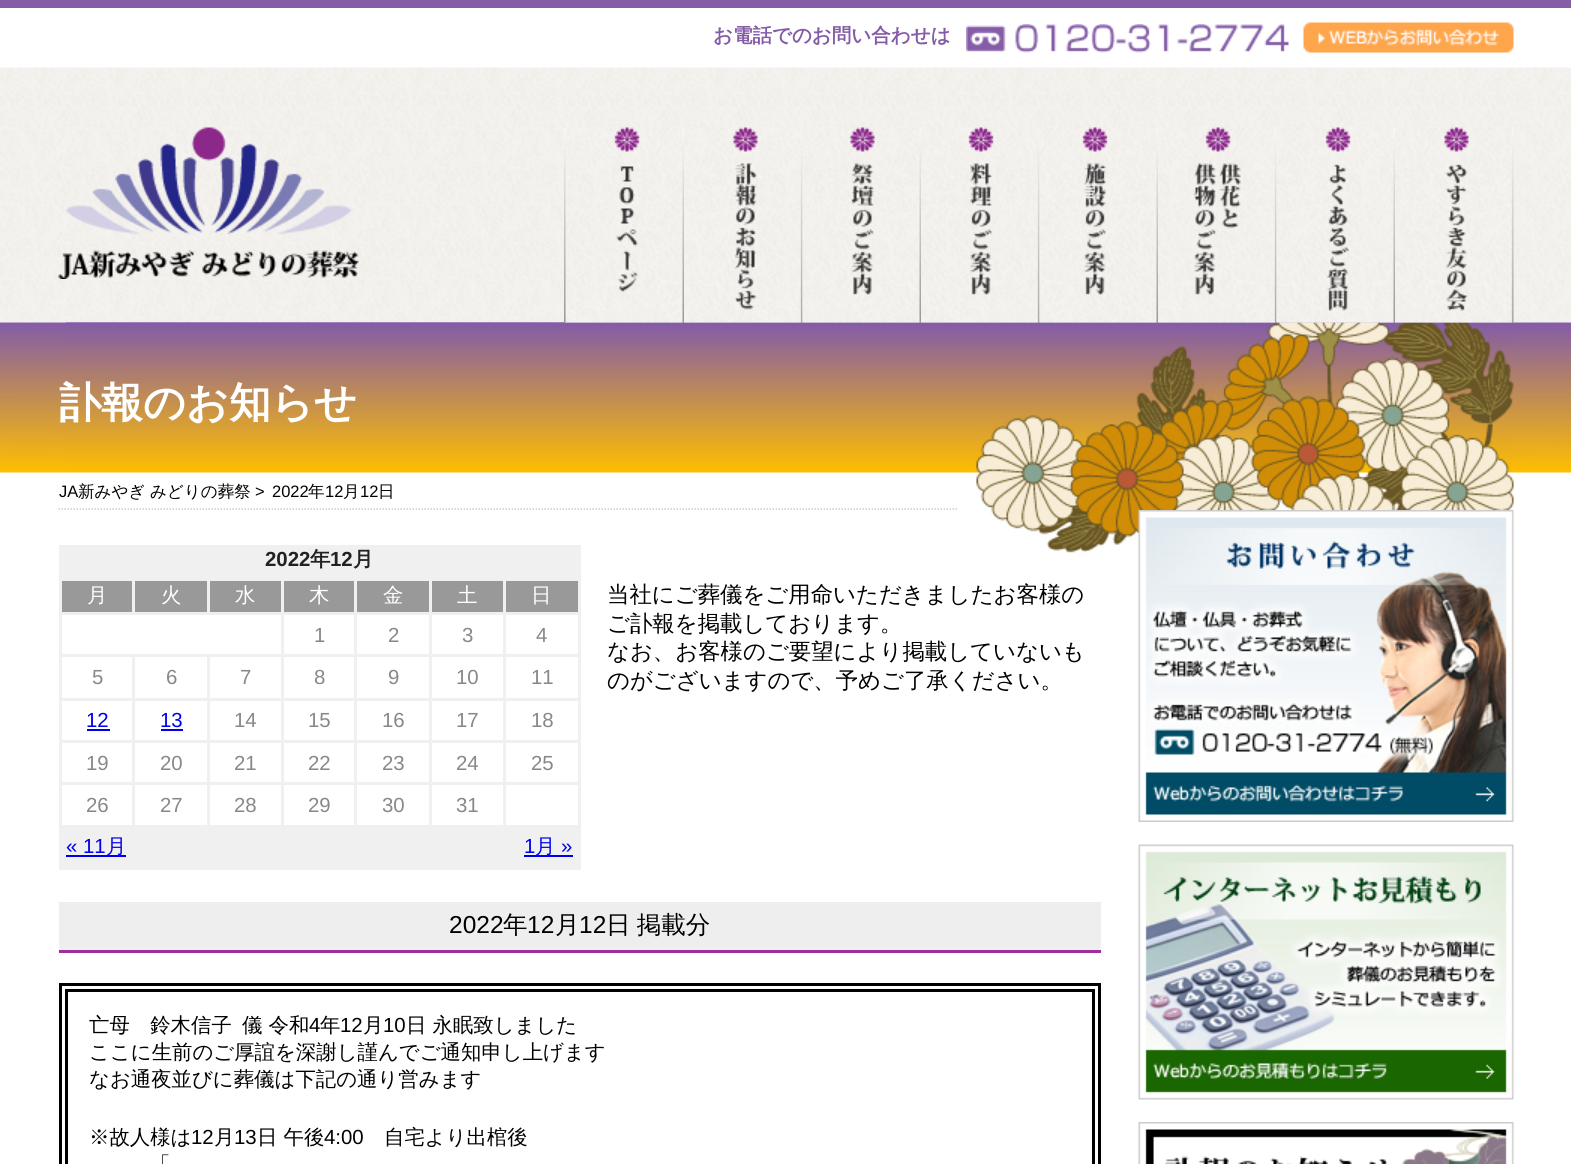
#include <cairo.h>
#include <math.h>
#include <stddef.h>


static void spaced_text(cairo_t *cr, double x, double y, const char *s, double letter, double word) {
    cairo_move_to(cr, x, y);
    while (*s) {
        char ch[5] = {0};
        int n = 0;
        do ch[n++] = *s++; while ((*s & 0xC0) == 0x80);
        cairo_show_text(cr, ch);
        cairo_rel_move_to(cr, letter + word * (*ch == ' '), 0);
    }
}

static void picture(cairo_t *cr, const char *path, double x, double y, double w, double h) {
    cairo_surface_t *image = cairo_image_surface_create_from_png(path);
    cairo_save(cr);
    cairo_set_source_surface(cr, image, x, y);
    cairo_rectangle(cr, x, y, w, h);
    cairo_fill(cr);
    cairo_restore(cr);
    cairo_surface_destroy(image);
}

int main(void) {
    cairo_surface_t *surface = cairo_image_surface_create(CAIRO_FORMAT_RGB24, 1571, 1164);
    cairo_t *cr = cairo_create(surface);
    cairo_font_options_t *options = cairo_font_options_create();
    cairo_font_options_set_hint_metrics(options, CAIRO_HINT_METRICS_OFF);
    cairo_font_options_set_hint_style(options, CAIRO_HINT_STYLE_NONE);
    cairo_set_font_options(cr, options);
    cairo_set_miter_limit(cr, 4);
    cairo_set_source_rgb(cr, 1, 1, 1);
    cairo_paint(cr);
    cairo_set_source_rgb(cr, 0.518, 0.361, 0.655);
    cairo_rectangle(cr, 0, 0, 1571, 8);
    cairo_fill(cr);
    cairo_select_font_face(cr, "WenQuanYi Zen Hei", CAIRO_FONT_SLANT_NORMAL, CAIRO_FONT_WEIGHT_BOLD);
    cairo_set_font_size(cr, 19.5);
    cairo_set_source_rgb(cr, 0.518, 0.357, 0.651);
    cairo_move_to(cr, 713, 42);
    cairo_show_text(cr, "お電話でのお問い合わせは");
    picture(cr, "img1.png", 966, 24, 323, 29);
    picture(cr, "img2.png", 1303, 22, 211, 31);
    picture(cr, "img3.png", 0, 67, 1571, 256);
    picture(cr, "img4.png", 58, 127, 301, 152);
    picture(cr, "img13.png", 0, 322, 1571, 151);
    picture(cr, "img14.png", 66, 322, 1448, 316);
    picture(cr, "img5.png", 564, 127, 120, 196);
    picture(cr, "img6.png", 684, 127, 119, 196);
    picture(cr, "img7.png", 802, 127, 119, 196);
    picture(cr, "img8.png", 921, 127, 119, 196);
    picture(cr, "img9.png", 1039, 127, 119, 196);
    picture(cr, "img10.png", 1158, 127, 119, 196);
    picture(cr, "img11.png", 1276, 127, 119, 196);
    picture(cr, "img12.png", 1395, 127, 119, 196);
    cairo_set_font_size(cr, 42);
    cairo_set_source_rgb(cr, 1, 1, 1);
    cairo_move_to(cr, 59, 417);
    cairo_show_text(cr, "訃報のお知らせ");
    cairo_new_path(cr);
    cairo_move_to(cr, 58.5, 509);
    cairo_line_to(cr, 958.5, 509);
    cairo_set_source_rgb(cr, 0.8, 0.8, 0.8);
    cairo_set_line_width(cr, 1.5);
    cairo_set_dash(cr, (double[]){1.5, 1.5}, 2, 0);
    cairo_stroke(cr);
    cairo_select_font_face(cr, "Liberation Sans", CAIRO_FONT_SLANT_NORMAL, CAIRO_FONT_WEIGHT_NORMAL);
    cairo_set_font_size(cr, 16.5);
    cairo_set_source_rgb(cr, 0, 0, 0);
    cairo_move_to(cr, 59, 497);
    cairo_show_text(cr, "JA");
    cairo_select_font_face(cr, "WenQuanYi Zen Hei Medium", CAIRO_FONT_SLANT_NORMAL, CAIRO_FONT_WEIGHT_NORMAL);
    cairo_move_to(cr, 78, 497);
    cairo_show_text(cr, "新みやぎ みどりの葬祭");
    cairo_select_font_face(cr, "Liberation Sans", CAIRO_FONT_SLANT_NORMAL, CAIRO_FONT_WEIGHT_NORMAL);
    cairo_move_to(cr, 255, 497);
    cairo_show_text(cr, ">");
    cairo_move_to(cr, 272, 497);
    cairo_show_text(cr, "2022");
    cairo_select_font_face(cr, "WenQuanYi Zen Hei Medium", CAIRO_FONT_SLANT_NORMAL, CAIRO_FONT_WEIGHT_NORMAL);
    cairo_move_to(cr, 308, 497);
    cairo_show_text(cr, "年");
    cairo_select_font_face(cr, "Liberation Sans", CAIRO_FONT_SLANT_NORMAL, CAIRO_FONT_WEIGHT_NORMAL);
    cairo_move_to(cr, 325, 497);
    cairo_show_text(cr, "12");
    cairo_select_font_face(cr, "WenQuanYi Zen Hei Medium", CAIRO_FONT_SLANT_NORMAL, CAIRO_FONT_WEIGHT_NORMAL);
    cairo_move_to(cr, 343, 497);
    cairo_show_text(cr, "月");
    cairo_select_font_face(cr, "Liberation Sans", CAIRO_FONT_SLANT_NORMAL, CAIRO_FONT_WEIGHT_NORMAL);
    cairo_move_to(cr, 360, 497);
    cairo_show_text(cr, "12");
    cairo_select_font_face(cr, "WenQuanYi Zen Hei Medium", CAIRO_FONT_SLANT_NORMAL, CAIRO_FONT_WEIGHT_NORMAL);
    cairo_move_to(cr, 378, 497);
    cairo_show_text(cr, "日");
    cairo_set_source_rgb(cr, 0.941, 0.941, 0.941);
    cairo_rectangle(cr, 59, 545, 522, 325);
    cairo_fill(cr);
    cairo_select_font_face(cr, "Liberation Sans", CAIRO_FONT_SLANT_NORMAL, CAIRO_FONT_WEIGHT_BOLD);
    cairo_set_font_size(cr, 20.4);
    cairo_set_source_rgb(cr, 0.133, 0.133, 0.133);
    cairo_move_to(cr, 265, 566);
    cairo_show_text(cr, "2022");
    cairo_select_font_face(cr, "WenQuanYi Zen Hei", CAIRO_FONT_SLANT_NORMAL, CAIRO_FONT_WEIGHT_BOLD);
    cairo_move_to(cr, 310, 566);
    cairo_show_text(cr, "年");
    cairo_select_font_face(cr, "Liberation Sans", CAIRO_FONT_SLANT_NORMAL, CAIRO_FONT_WEIGHT_BOLD);
    cairo_move_to(cr, 330, 566);
    cairo_show_text(cr, "12");
    cairo_select_font_face(cr, "WenQuanYi Zen Hei", CAIRO_FONT_SLANT_NORMAL, CAIRO_FONT_WEIGHT_BOLD);
    cairo_move_to(cr, 353, 566);
    cairo_show_text(cr, "月");
    cairo_set_source_rgb(cr, 0.6, 0.6, 0.6);
    cairo_rectangle(cr, 62, 581, 70, 31);
    cairo_fill(cr);
    cairo_select_font_face(cr, "WenQuanYi Zen Hei Medium", CAIRO_FONT_SLANT_NORMAL, CAIRO_FONT_WEIGHT_NORMAL);
    cairo_set_source_rgb(cr, 1, 1, 1);
    cairo_move_to(cr, 87, 602);
    cairo_show_text(cr, "月");
    cairo_set_source_rgb(cr, 0.6, 0.6, 0.6);
    cairo_rectangle(cr, 135, 581, 72, 31);
    cairo_fill(cr);
    cairo_set_source_rgb(cr, 1, 1, 1);
    cairo_move_to(cr, 161, 602);
    cairo_show_text(cr, "火");
    cairo_set_source_rgb(cr, 0.6, 0.6, 0.6);
    cairo_rectangle(cr, 210, 581, 71, 31);
    cairo_fill(cr);
    cairo_set_source_rgb(cr, 1, 1, 1);
    cairo_move_to(cr, 235, 602);
    cairo_show_text(cr, "水");
    cairo_set_source_rgb(cr, 0.6, 0.6, 0.6);
    cairo_rectangle(cr, 284, 581, 70, 31);
    cairo_fill(cr);
    cairo_set_source_rgb(cr, 1, 1, 1);
    cairo_move_to(cr, 309, 602);
    cairo_show_text(cr, "木");
    cairo_set_source_rgb(cr, 0.6, 0.6, 0.6);
    cairo_rectangle(cr, 357, 581, 72, 31);
    cairo_fill(cr);
    cairo_set_source_rgb(cr, 1, 1, 1);
    cairo_move_to(cr, 383, 602);
    cairo_show_text(cr, "金");
    cairo_set_source_rgb(cr, 0.6, 0.6, 0.6);
    cairo_rectangle(cr, 432, 581, 71, 31);
    cairo_fill(cr);
    cairo_set_source_rgb(cr, 1, 1, 1);
    cairo_move_to(cr, 457, 602);
    cairo_show_text(cr, "土");
    cairo_set_source_rgb(cr, 0.6, 0.6, 0.6);
    cairo_rectangle(cr, 506, 581, 72, 31);
    cairo_fill(cr);
    cairo_set_source_rgb(cr, 1, 1, 1);
    cairo_move_to(cr, 531, 602);
    cairo_show_text(cr, "日");
    cairo_rectangle(cr, 64, 617, 217, 37);
    cairo_fill(cr);
    cairo_rectangle(cr, 62, 615, 219, 2);
    cairo_fill(cr);
    cairo_rectangle(cr, 62, 615, 2, 39);
    cairo_fill(cr);
    cairo_rectangle(cr, 286, 617, 68, 37);
    cairo_fill(cr);
    cairo_rectangle(cr, 284, 615, 70, 2);
    cairo_fill(cr);
    cairo_rectangle(cr, 284, 615, 2, 39);
    cairo_fill(cr);
    cairo_select_font_face(cr, "Liberation Sans", CAIRO_FONT_SLANT_NORMAL, CAIRO_FONT_WEIGHT_NORMAL);
    cairo_set_source_rgb(cr, 0.533, 0.533, 0.533);
    cairo_move_to(cr, 314, 642);
    cairo_show_text(cr, "1");
    cairo_set_source_rgb(cr, 1, 1, 1);
    cairo_rectangle(cr, 359, 617, 70, 37);
    cairo_fill(cr);
    cairo_rectangle(cr, 357, 615, 72, 2);
    cairo_fill(cr);
    cairo_rectangle(cr, 357, 615, 2, 39);
    cairo_fill(cr);
    cairo_set_source_rgb(cr, 0.533, 0.533, 0.533);
    cairo_move_to(cr, 388, 642);
    cairo_show_text(cr, "2");
    cairo_set_source_rgb(cr, 1, 1, 1);
    cairo_rectangle(cr, 434, 617, 69, 37);
    cairo_fill(cr);
    cairo_rectangle(cr, 432, 615, 71, 2);
    cairo_fill(cr);
    cairo_rectangle(cr, 432, 615, 2, 39);
    cairo_fill(cr);
    cairo_set_source_rgb(cr, 0.533, 0.533, 0.533);
    cairo_move_to(cr, 462, 642);
    cairo_show_text(cr, "3");
    cairo_set_source_rgb(cr, 1, 1, 1);
    cairo_rectangle(cr, 508, 617, 70, 37);
    cairo_fill(cr);
    cairo_rectangle(cr, 506, 615, 72, 2);
    cairo_fill(cr);
    cairo_rectangle(cr, 506, 615, 2, 39);
    cairo_fill(cr);
    cairo_set_source_rgb(cr, 0.533, 0.533, 0.533);
    cairo_move_to(cr, 536, 642);
    cairo_show_text(cr, "4");
    cairo_set_source_rgb(cr, 1, 1, 1);
    cairo_rectangle(cr, 64, 659, 68, 39);
    cairo_fill(cr);
    cairo_rectangle(cr, 62, 657, 70, 2);
    cairo_fill(cr);
    cairo_rectangle(cr, 62, 657, 2, 41);
    cairo_fill(cr);
    cairo_set_source_rgb(cr, 0.533, 0.533, 0.533);
    cairo_move_to(cr, 92, 684);
    cairo_show_text(cr, "5");
    cairo_set_source_rgb(cr, 1, 1, 1);
    cairo_rectangle(cr, 137, 659, 70, 39);
    cairo_fill(cr);
    cairo_rectangle(cr, 135, 657, 72, 2);
    cairo_fill(cr);
    cairo_rectangle(cr, 135, 657, 2, 41);
    cairo_fill(cr);
    cairo_set_source_rgb(cr, 0.533, 0.533, 0.533);
    cairo_move_to(cr, 166, 684);
    cairo_show_text(cr, "6");
    cairo_set_source_rgb(cr, 1, 1, 1);
    cairo_rectangle(cr, 212, 659, 69, 39);
    cairo_fill(cr);
    cairo_rectangle(cr, 210, 657, 71, 2);
    cairo_fill(cr);
    cairo_rectangle(cr, 210, 657, 2, 41);
    cairo_fill(cr);
    cairo_set_source_rgb(cr, 0.533, 0.533, 0.533);
    cairo_move_to(cr, 240, 684);
    cairo_show_text(cr, "7");
    cairo_set_source_rgb(cr, 1, 1, 1);
    cairo_rectangle(cr, 286, 659, 68, 39);
    cairo_fill(cr);
    cairo_rectangle(cr, 284, 657, 70, 2);
    cairo_fill(cr);
    cairo_rectangle(cr, 284, 657, 2, 41);
    cairo_fill(cr);
    cairo_set_source_rgb(cr, 0.533, 0.533, 0.533);
    cairo_move_to(cr, 314, 684);
    cairo_show_text(cr, "8");
    cairo_set_source_rgb(cr, 1, 1, 1);
    cairo_rectangle(cr, 359, 659, 70, 39);
    cairo_fill(cr);
    cairo_rectangle(cr, 357, 657, 72, 2);
    cairo_fill(cr);
    cairo_rectangle(cr, 357, 657, 2, 41);
    cairo_fill(cr);
    cairo_set_source_rgb(cr, 0.533, 0.533, 0.533);
    cairo_move_to(cr, 388, 684);
    cairo_show_text(cr, "9");
    cairo_set_source_rgb(cr, 1, 1, 1);
    cairo_rectangle(cr, 434, 659, 69, 39);
    cairo_fill(cr);
    cairo_rectangle(cr, 432, 657, 71, 2);
    cairo_fill(cr);
    cairo_rectangle(cr, 432, 657, 2, 41);
    cairo_fill(cr);
    cairo_set_source_rgb(cr, 0.533, 0.533, 0.533);
    cairo_move_to(cr, 456, 684);
    cairo_show_text(cr, "10");
    cairo_set_source_rgb(cr, 1, 1, 1);
    cairo_rectangle(cr, 508, 659, 70, 39);
    cairo_fill(cr);
    cairo_rectangle(cr, 506, 657, 72, 2);
    cairo_fill(cr);
    cairo_rectangle(cr, 506, 657, 2, 41);
    cairo_fill(cr);
    cairo_set_source_rgb(cr, 0.533, 0.533, 0.533);
    cairo_move_to(cr, 531, 684);
    cairo_show_text(cr, "11");
    cairo_set_source_rgb(cr, 1, 1, 1);
    cairo_rectangle(cr, 64, 703, 68, 37);
    cairo_fill(cr);
    cairo_rectangle(cr, 62, 701, 70, 2);
    cairo_fill(cr);
    cairo_rectangle(cr, 62, 701, 2, 39);
    cairo_fill(cr);
    cairo_set_source_rgb(cr, 0, 0, 0.933);
    cairo_move_to(cr, 86, 727);
    cairo_show_text(cr, "12");
    cairo_rectangle(cr, 87, 729, 23, 2);
    cairo_fill(cr);
    cairo_set_source_rgb(cr, 1, 1, 1);
    cairo_rectangle(cr, 137, 703, 70, 37);
    cairo_fill(cr);
    cairo_rectangle(cr, 135, 701, 72, 2);
    cairo_fill(cr);
    cairo_rectangle(cr, 135, 701, 2, 39);
    cairo_fill(cr);
    cairo_set_source_rgb(cr, 0, 0, 0.933);
    cairo_move_to(cr, 160, 727);
    cairo_show_text(cr, "13");
    cairo_rectangle(cr, 161, 729, 22, 2);
    cairo_fill(cr);
    cairo_set_source_rgb(cr, 1, 1, 1);
    cairo_rectangle(cr, 212, 703, 69, 37);
    cairo_fill(cr);
    cairo_rectangle(cr, 210, 701, 71, 2);
    cairo_fill(cr);
    cairo_rectangle(cr, 210, 701, 2, 39);
    cairo_fill(cr);
    cairo_set_source_rgb(cr, 0.533, 0.533, 0.533);
    cairo_move_to(cr, 234, 727);
    cairo_show_text(cr, "14");
    cairo_set_source_rgb(cr, 1, 1, 1);
    cairo_rectangle(cr, 286, 703, 68, 37);
    cairo_fill(cr);
    cairo_rectangle(cr, 284, 701, 70, 2);
    cairo_fill(cr);
    cairo_rectangle(cr, 284, 701, 2, 39);
    cairo_fill(cr);
    cairo_set_source_rgb(cr, 0.533, 0.533, 0.533);
    cairo_move_to(cr, 308, 727);
    cairo_show_text(cr, "15");
    cairo_set_source_rgb(cr, 1, 1, 1);
    cairo_rectangle(cr, 359, 703, 70, 37);
    cairo_fill(cr);
    cairo_rectangle(cr, 357, 701, 72, 2);
    cairo_fill(cr);
    cairo_rectangle(cr, 357, 701, 2, 39);
    cairo_fill(cr);
    cairo_set_source_rgb(cr, 0.533, 0.533, 0.533);
    cairo_move_to(cr, 382, 727);
    cairo_show_text(cr, "16");
    cairo_set_source_rgb(cr, 1, 1, 1);
    cairo_rectangle(cr, 434, 703, 69, 37);
    cairo_fill(cr);
    cairo_rectangle(cr, 432, 701, 71, 2);
    cairo_fill(cr);
    cairo_rectangle(cr, 432, 701, 2, 39);
    cairo_fill(cr);
    cairo_set_source_rgb(cr, 0.533, 0.533, 0.533);
    cairo_move_to(cr, 456, 727);
    cairo_show_text(cr, "17");
    cairo_set_source_rgb(cr, 1, 1, 1);
    cairo_rectangle(cr, 508, 703, 70, 37);
    cairo_fill(cr);
    cairo_rectangle(cr, 506, 701, 72, 2);
    cairo_fill(cr);
    cairo_rectangle(cr, 506, 701, 2, 39);
    cairo_fill(cr);
    cairo_set_source_rgb(cr, 0.533, 0.533, 0.533);
    cairo_move_to(cr, 531, 727);
    cairo_show_text(cr, "18");
    cairo_set_source_rgb(cr, 1, 1, 1);
    cairo_rectangle(cr, 64, 745, 68, 37);
    cairo_fill(cr);
    cairo_rectangle(cr, 62, 743, 70, 2);
    cairo_fill(cr);
    cairo_rectangle(cr, 62, 743, 2, 39);
    cairo_fill(cr);
    cairo_set_source_rgb(cr, 0.533, 0.533, 0.533);
    cairo_move_to(cr, 86, 770);
    cairo_show_text(cr, "19");
    cairo_set_source_rgb(cr, 1, 1, 1);
    cairo_rectangle(cr, 137, 745, 70, 37);
    cairo_fill(cr);
    cairo_rectangle(cr, 135, 743, 72, 2);
    cairo_fill(cr);
    cairo_rectangle(cr, 135, 743, 2, 39);
    cairo_fill(cr);
    cairo_set_source_rgb(cr, 0.533, 0.533, 0.533);
    cairo_move_to(cr, 160, 770);
    cairo_show_text(cr, "20");
    cairo_set_source_rgb(cr, 1, 1, 1);
    cairo_rectangle(cr, 212, 745, 69, 37);
    cairo_fill(cr);
    cairo_rectangle(cr, 210, 743, 71, 2);
    cairo_fill(cr);
    cairo_rectangle(cr, 210, 743, 2, 39);
    cairo_fill(cr);
    cairo_set_source_rgb(cr, 0.533, 0.533, 0.533);
    cairo_move_to(cr, 234, 770);
    cairo_show_text(cr, "21");
    cairo_set_source_rgb(cr, 1, 1, 1);
    cairo_rectangle(cr, 286, 745, 68, 37);
    cairo_fill(cr);
    cairo_rectangle(cr, 284, 743, 70, 2);
    cairo_fill(cr);
    cairo_rectangle(cr, 284, 743, 2, 39);
    cairo_fill(cr);
    cairo_set_source_rgb(cr, 0.533, 0.533, 0.533);
    cairo_move_to(cr, 308, 770);
    cairo_show_text(cr, "22");
    cairo_set_source_rgb(cr, 1, 1, 1);
    cairo_rectangle(cr, 359, 745, 70, 37);
    cairo_fill(cr);
    cairo_rectangle(cr, 357, 743, 72, 2);
    cairo_fill(cr);
    cairo_rectangle(cr, 357, 743, 2, 39);
    cairo_fill(cr);
    cairo_set_source_rgb(cr, 0.533, 0.533, 0.533);
    cairo_move_to(cr, 382, 770);
    cairo_show_text(cr, "23");
    cairo_set_source_rgb(cr, 1, 1, 1);
    cairo_rectangle(cr, 434, 745, 69, 37);
    cairo_fill(cr);
    cairo_rectangle(cr, 432, 743, 71, 2);
    cairo_fill(cr);
    cairo_rectangle(cr, 432, 743, 2, 39);
    cairo_fill(cr);
    cairo_set_source_rgb(cr, 0.533, 0.533, 0.533);
    cairo_move_to(cr, 456, 770);
    cairo_show_text(cr, "24");
    cairo_set_source_rgb(cr, 1, 1, 1);
    cairo_rectangle(cr, 508, 745, 70, 37);
    cairo_fill(cr);
    cairo_rectangle(cr, 506, 743, 72, 2);
    cairo_fill(cr);
    cairo_rectangle(cr, 506, 743, 2, 39);
    cairo_fill(cr);
    cairo_set_source_rgb(cr, 0.533, 0.533, 0.533);
    cairo_move_to(cr, 531, 770);
    cairo_show_text(cr, "25");
    cairo_set_source_rgb(cr, 1, 1, 1);
    cairo_rectangle(cr, 64, 787, 68, 38);
    cairo_fill(cr);
    cairo_rectangle(cr, 62, 785, 70, 2);
    cairo_fill(cr);
    cairo_rectangle(cr, 62, 785, 2, 40);
    cairo_fill(cr);
    cairo_set_source_rgb(cr, 0.533, 0.533, 0.533);
    cairo_move_to(cr, 86, 812);
    cairo_show_text(cr, "26");
    cairo_set_source_rgb(cr, 1, 1, 1);
    cairo_rectangle(cr, 137, 787, 70, 38);
    cairo_fill(cr);
    cairo_rectangle(cr, 135, 785, 72, 2);
    cairo_fill(cr);
    cairo_rectangle(cr, 135, 785, 2, 40);
    cairo_fill(cr);
    cairo_set_source_rgb(cr, 0.533, 0.533, 0.533);
    cairo_move_to(cr, 160, 812);
    cairo_show_text(cr, "27");
    cairo_set_source_rgb(cr, 1, 1, 1);
    cairo_rectangle(cr, 212, 787, 69, 38);
    cairo_fill(cr);
    cairo_rectangle(cr, 210, 785, 71, 2);
    cairo_fill(cr);
    cairo_rectangle(cr, 210, 785, 2, 40);
    cairo_fill(cr);
    cairo_set_source_rgb(cr, 0.533, 0.533, 0.533);
    cairo_move_to(cr, 234, 812);
    cairo_show_text(cr, "28");
    cairo_set_source_rgb(cr, 1, 1, 1);
    cairo_rectangle(cr, 286, 787, 68, 38);
    cairo_fill(cr);
    cairo_rectangle(cr, 284, 785, 70, 2);
    cairo_fill(cr);
    cairo_rectangle(cr, 284, 785, 2, 40);
    cairo_fill(cr);
    cairo_set_source_rgb(cr, 0.533, 0.533, 0.533);
    cairo_move_to(cr, 308, 812);
    cairo_show_text(cr, "29");
    cairo_set_source_rgb(cr, 1, 1, 1);
    cairo_rectangle(cr, 359, 787, 70, 38);
    cairo_fill(cr);
    cairo_rectangle(cr, 357, 785, 72, 2);
    cairo_fill(cr);
    cairo_rectangle(cr, 357, 785, 2, 40);
    cairo_fill(cr);
    cairo_set_source_rgb(cr, 0.533, 0.533, 0.533);
    cairo_move_to(cr, 382, 812);
    cairo_show_text(cr, "30");
    cairo_set_source_rgb(cr, 1, 1, 1);
    cairo_rectangle(cr, 434, 787, 69, 38);
    cairo_fill(cr);
    cairo_rectangle(cr, 432, 785, 71, 2);
    cairo_fill(cr);
    cairo_rectangle(cr, 432, 785, 2, 40);
    cairo_fill(cr);
    cairo_set_source_rgb(cr, 0.533, 0.533, 0.533);
    cairo_move_to(cr, 456, 812);
    cairo_show_text(cr, "31");
    cairo_set_source_rgb(cr, 1, 1, 1);
    cairo_rectangle(cr, 508, 787, 70, 38);
    cairo_fill(cr);
    cairo_rectangle(cr, 506, 785, 72, 2);
    cairo_fill(cr);
    cairo_rectangle(cr, 506, 785, 2, 40);
    cairo_fill(cr);
    cairo_set_source_rgb(cr, 0, 0, 0.933);
    cairo_move_to(cr, 66, 853);
    cairo_show_text(cr, "« 11");
    cairo_rectangle(cr, 66, 855, 60, 2);
    cairo_fill(cr);
    cairo_select_font_face(cr, "WenQuanYi Zen Hei Medium", CAIRO_FONT_SLANT_NORMAL, CAIRO_FONT_WEIGHT_NORMAL);
    cairo_move_to(cr, 106, 853);
    cairo_show_text(cr, "月");
    cairo_select_font_face(cr, "Liberation Sans", CAIRO_FONT_SLANT_NORMAL, CAIRO_FONT_WEIGHT_NORMAL);
    cairo_move_to(cr, 524, 853);
    cairo_show_text(cr, "1");
    cairo_rectangle(cr, 524, 855, 49, 2);
    cairo_fill(cr);
    cairo_select_font_face(cr, "WenQuanYi Zen Hei Medium", CAIRO_FONT_SLANT_NORMAL, CAIRO_FONT_WEIGHT_NORMAL);
    cairo_move_to(cr, 535, 853);
    cairo_show_text(cr, "月");
    cairo_select_font_face(cr, "Liberation Sans", CAIRO_FONT_SLANT_NORMAL, CAIRO_FONT_WEIGHT_NORMAL);
    cairo_move_to(cr, 561, 853);
    cairo_show_text(cr, "»");
    cairo_select_font_face(cr, "WenQuanYi Zen Hei Medium", CAIRO_FONT_SLANT_NORMAL, CAIRO_FONT_WEIGHT_NORMAL);
    cairo_set_font_size(cr, 22.4);
    cairo_set_source_rgb(cr, 0, 0, 0);
    cairo_move_to(cr, 607, 602);
    cairo_show_text(cr, "当社にご葬儀をご用命いただきましたお客様の");
    cairo_move_to(cr, 607, 631);
    cairo_show_text(cr, "ご訃報を掲載しております。");
    cairo_move_to(cr, 607, 659);
    cairo_show_text(cr, "なお、お客様のご要望により掲載していないも");
    cairo_move_to(cr, 607, 688);
    cairo_show_text(cr, "のがございますので、予めご了承ください。");
    cairo_set_source_rgb(cr, 0.933, 0.933, 0.933);
    cairo_rectangle(cr, 59, 902, 1042, 48);
    cairo_fill(cr);
    cairo_set_source_rgb(cr, 0.612, 0.184, 0.612);
    cairo_rectangle(cr, 59, 950, 1042, 3);
    cairo_fill(cr);
    cairo_select_font_face(cr, "Liberation Sans", CAIRO_FONT_SLANT_NORMAL, CAIRO_FONT_WEIGHT_NORMAL);
    cairo_set_font_size(cr, 24.5);
    cairo_set_source_rgb(cr, 0, 0, 0);
    cairo_move_to(cr, 449, 933);
    cairo_show_text(cr, "2022");
    cairo_select_font_face(cr, "WenQuanYi Zen Hei Medium", CAIRO_FONT_SLANT_NORMAL, CAIRO_FONT_WEIGHT_NORMAL);
    cairo_move_to(cr, 503, 933);
    cairo_show_text(cr, "年");
    cairo_select_font_face(cr, "Liberation Sans", CAIRO_FONT_SLANT_NORMAL, CAIRO_FONT_WEIGHT_NORMAL);
    cairo_move_to(cr, 527, 933);
    cairo_show_text(cr, "12");
    cairo_select_font_face(cr, "WenQuanYi Zen Hei Medium", CAIRO_FONT_SLANT_NORMAL, CAIRO_FONT_WEIGHT_NORMAL);
    cairo_move_to(cr, 555, 933);
    cairo_show_text(cr, "月");
    cairo_select_font_face(cr, "Liberation Sans", CAIRO_FONT_SLANT_NORMAL, CAIRO_FONT_WEIGHT_NORMAL);
    cairo_move_to(cr, 579, 933);
    cairo_show_text(cr, "12");
    cairo_select_font_face(cr, "WenQuanYi Zen Hei Medium", CAIRO_FONT_SLANT_NORMAL, CAIRO_FONT_WEIGHT_NORMAL);
    spaced_text(cr, 606, 933, "日 掲載分", 0, -1);
    cairo_rectangle(cr, 60.5, 984.5, 1039, 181);
    cairo_set_line_width(cr, 3);
    cairo_set_dash(cr, NULL, 0, 0);
    cairo_stroke(cr);
    cairo_rectangle(cr, 66.5, 990.5, 1027, 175);
    cairo_stroke(cr);
    cairo_set_font_size(cr, 20.4);
    cairo_move_to(cr, 89, 1032);
    cairo_show_text(cr, "亡母　鈴木信子");
    cairo_move_to(cr, 242, 1032);
    cairo_show_text(cr, "儀 令和");
    cairo_select_font_face(cr, "Liberation Sans", CAIRO_FONT_SLANT_NORMAL, CAIRO_FONT_WEIGHT_NORMAL);
    cairo_move_to(cr, 309, 1032);
    cairo_show_text(cr, "4");
    cairo_select_font_face(cr, "WenQuanYi Zen Hei Medium", CAIRO_FONT_SLANT_NORMAL, CAIRO_FONT_WEIGHT_NORMAL);
    cairo_move_to(cr, 320, 1032);
    cairo_show_text(cr, "年");
    cairo_select_font_face(cr, "Liberation Sans", CAIRO_FONT_SLANT_NORMAL, CAIRO_FONT_WEIGHT_NORMAL);
    cairo_move_to(cr, 340, 1032);
    cairo_show_text(cr, "12");
    cairo_select_font_face(cr, "WenQuanYi Zen Hei Medium", CAIRO_FONT_SLANT_NORMAL, CAIRO_FONT_WEIGHT_NORMAL);
    cairo_move_to(cr, 363, 1032);
    cairo_show_text(cr, "月");
    cairo_select_font_face(cr, "Liberation Sans", CAIRO_FONT_SLANT_NORMAL, CAIRO_FONT_WEIGHT_NORMAL);
    cairo_move_to(cr, 383, 1032);
    cairo_show_text(cr, "10");
    cairo_select_font_face(cr, "WenQuanYi Zen Hei Medium", CAIRO_FONT_SLANT_NORMAL, CAIRO_FONT_WEIGHT_NORMAL);
    cairo_move_to(cr, 406, 1032);
    cairo_show_text(cr, "日 永眠致しました");
    cairo_move_to(cr, 89, 1059);
    cairo_show_text(cr, "ここに生前のご厚誼を深謝し謹んでご通知申し上げます");
    cairo_move_to(cr, 89, 1086);
    cairo_show_text(cr, "なお通夜並びに葬儀は下記の通り営みます");
    cairo_move_to(cr, 89, 1144);
    cairo_show_text(cr, "※故人様は");
    cairo_select_font_face(cr, "Liberation Sans", CAIRO_FONT_SLANT_NORMAL, CAIRO_FONT_WEIGHT_NORMAL);
    cairo_move_to(cr, 191, 1144);
    cairo_show_text(cr, "12");
    cairo_select_font_face(cr, "WenQuanYi Zen Hei Medium", CAIRO_FONT_SLANT_NORMAL, CAIRO_FONT_WEIGHT_NORMAL);
    cairo_move_to(cr, 214, 1144);
    cairo_show_text(cr, "月");
    cairo_select_font_face(cr, "Liberation Sans", CAIRO_FONT_SLANT_NORMAL, CAIRO_FONT_WEIGHT_NORMAL);
    cairo_move_to(cr, 234, 1144);
    cairo_show_text(cr, "13");
    cairo_select_font_face(cr, "WenQuanYi Zen Hei Medium", CAIRO_FONT_SLANT_NORMAL, CAIRO_FONT_WEIGHT_NORMAL);
    cairo_move_to(cr, 257, 1144);
    cairo_show_text(cr, "日 午後");
    cairo_select_font_face(cr, "Liberation Sans", CAIRO_FONT_SLANT_NORMAL, CAIRO_FONT_WEIGHT_NORMAL);
    cairo_move_to(cr, 324, 1144);
    cairo_show_text(cr, "4:00");
    cairo_select_font_face(cr, "WenQuanYi Zen Hei Medium", CAIRO_FONT_SLANT_NORMAL, CAIRO_FONT_WEIGHT_NORMAL);
    cairo_move_to(cr, 384, 1144);
    cairo_show_text(cr, "自宅より出棺後");
    cairo_move_to(cr, 150, 1171);
    cairo_show_text(cr, "「");
    cairo_set_source_rgb(cr, 1, 1, 1);
    cairo_rectangle(cr, 1139, 510, 372, 128);
    cairo_fill(cr);
    picture(cr, "img15.png", 1138, 510, 376, 312);
    picture(cr, "img16.png", 1138, 844, 376, 256);
    picture(cr, "img17.png", 1138, 1122, 376, 42);
    cairo_surface_write_to_png(surface, "page.png");
    cairo_font_options_destroy(options);
    cairo_destroy(cr);
    cairo_surface_destroy(surface);
    return 0;
}
